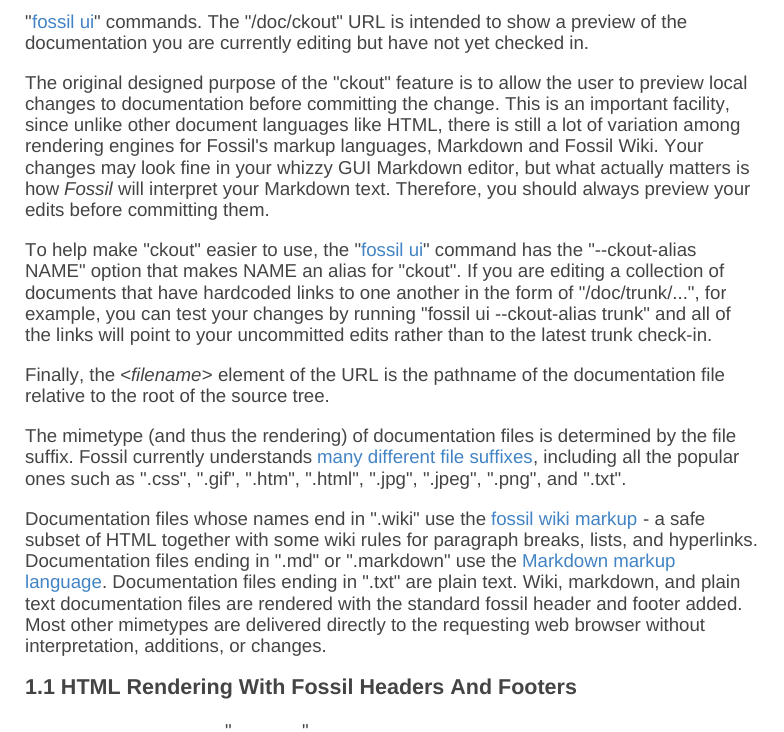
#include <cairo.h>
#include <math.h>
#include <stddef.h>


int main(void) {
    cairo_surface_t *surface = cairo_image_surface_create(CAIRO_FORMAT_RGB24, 784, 732);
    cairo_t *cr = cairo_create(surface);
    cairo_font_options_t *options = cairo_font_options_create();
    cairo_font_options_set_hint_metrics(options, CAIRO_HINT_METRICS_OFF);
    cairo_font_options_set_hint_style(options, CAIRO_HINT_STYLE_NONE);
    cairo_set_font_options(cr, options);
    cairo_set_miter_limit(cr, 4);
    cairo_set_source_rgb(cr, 1, 1, 1);
    cairo_paint(cr);
    cairo_select_font_face(cr, "Liberation Sans", CAIRO_FONT_SLANT_NORMAL, CAIRO_FONT_WEIGHT_NORMAL);
    cairo_set_font_size(cr, 18.65);
    cairo_set_source_rgb(cr, 0.267, 0.267, 0.267);
    cairo_move_to(cr, 25, 28);
    cairo_show_text(cr, "\"");
    cairo_set_source_rgb(cr, 0.255, 0.514, 0.769);
    cairo_move_to(cr, 32, 28);
    cairo_show_text(cr, "fossil ui");
    cairo_set_source_rgb(cr, 0.267, 0.267, 0.267);
    cairo_move_to(cr, 94, 28);
    cairo_show_text(cr, "\" commands. The \"/doc/ckout\" URL is intended to show a preview of the");
    cairo_move_to(cr, 25, 49);
    cairo_show_text(cr, "documentation you are currently editing but have not yet checked in.");
    cairo_move_to(cr, 25, 89);
    cairo_show_text(cr, "The original designed purpose of the \"ckout\" feature is to allow the user to preview local");
    cairo_move_to(cr, 25, 110);
    cairo_show_text(cr, "changes to documentation before committing the change.");
    cairo_move_to(cr, 505, 110);
    cairo_show_text(cr, "This is an important facility,");
    cairo_move_to(cr, 25, 131);
    cairo_show_text(cr, "since unlike other document languages like HTML, there is still a lot of variation among");
    cairo_move_to(cr, 25, 152);
    cairo_show_text(cr, "rendering engines for Fossil's markup languages, Markdown and Fossil Wiki. Your");
    cairo_move_to(cr, 25, 174);
    cairo_show_text(cr, "changes may look fine in your whizzy GUI Markdown editor, but what actually matters is");
    cairo_move_to(cr, 25, 195);
    cairo_show_text(cr, "how");
    cairo_select_font_face(cr, "Liberation Sans", CAIRO_FONT_SLANT_ITALIC, CAIRO_FONT_WEIGHT_NORMAL);
    cairo_move_to(cr, 64, 195);
    cairo_show_text(cr, "Fossil");
    cairo_select_font_face(cr, "Liberation Sans", CAIRO_FONT_SLANT_NORMAL, CAIRO_FONT_WEIGHT_NORMAL);
    cairo_move_to(cr, 118, 195);
    cairo_show_text(cr, "will interpret your Markdown text. Therefore, you should always preview your");
    cairo_move_to(cr, 25, 216);
    cairo_show_text(cr, "edits before committing them.");
    cairo_move_to(cr, 25, 256);
    cairo_show_text(cr, "To help make \"ckout\" easier to use, the \"");
    cairo_set_source_rgb(cr, 0.255, 0.514, 0.769);
    cairo_move_to(cr, 361, 256);
    cairo_show_text(cr, "fossil ui");
    cairo_set_source_rgb(cr, 0.267, 0.267, 0.267);
    cairo_move_to(cr, 423, 256);
    cairo_show_text(cr, "\" command has the \"--ckout-alias");
    cairo_move_to(cr, 25, 277);
    cairo_show_text(cr, "NAME\" option that makes NAME an alias for \"ckout\".");
    cairo_move_to(cr, 467, 277);
    cairo_show_text(cr, "If you are editing a collection of");
    cairo_move_to(cr, 25, 299);
    cairo_show_text(cr, "documents that have hardcoded links to one another in the form of \"/doc/trunk/...\", for");
    cairo_move_to(cr, 25, 320);
    cairo_show_text(cr, "example, you can test your changes by running \"fossil ui --ckout-alias trunk\" and all of");
    cairo_move_to(cr, 25, 341);
    cairo_show_text(cr, "the links will point to your uncommitted edits rather than to the latest trunk check-in.");
    cairo_move_to(cr, 25, 381);
    cairo_show_text(cr, "Finally, the");
    cairo_select_font_face(cr, "Liberation Sans", CAIRO_FONT_SLANT_ITALIC, CAIRO_FONT_WEIGHT_NORMAL);
    cairo_move_to(cr, 120, 381);
    cairo_show_text(cr, "<filename>");
    cairo_select_font_face(cr, "Liberation Sans", CAIRO_FONT_SLANT_NORMAL, CAIRO_FONT_WEIGHT_NORMAL);
    cairo_move_to(cr, 218, 381);
    cairo_show_text(cr, "element of the URL is the pathname of the documentation file");
    cairo_move_to(cr, 25, 402);
    cairo_show_text(cr, "relative to the root of the source tree.");
    cairo_move_to(cr, 25, 442);
    cairo_show_text(cr, "The mimetype (and thus the rendering) of documentation files is determined by the file");
    cairo_move_to(cr, 25, 463);
    cairo_show_text(cr, "suffix. Fossil currently understands");
    cairo_set_source_rgb(cr, 0.255, 0.514, 0.769);
    cairo_move_to(cr, 317, 463);
    cairo_show_text(cr, "many different file suffixes");
    cairo_set_source_rgb(cr, 0.267, 0.267, 0.267);
    cairo_move_to(cr, 533, 463);
    cairo_show_text(cr, ", including all the popular");
    cairo_move_to(cr, 25, 485);
    cairo_show_text(cr, "ones such as \".css\", \".gif\", \".htm\", \".html\", \".jpg\", \".jpeg\", \".png\", and \".txt\".");
    cairo_move_to(cr, 25, 525);
    cairo_show_text(cr, "Documentation files whose names end in \".wiki\" use the");
    cairo_set_source_rgb(cr, 0.255, 0.514, 0.769);
    cairo_move_to(cr, 491, 525);
    cairo_show_text(cr, "fossil wiki markup");
    cairo_set_source_rgb(cr, 0.267, 0.267, 0.267);
    cairo_move_to(cr, 643, 525);
    cairo_show_text(cr, "- a safe");
    cairo_move_to(cr, 25, 546);
    cairo_show_text(cr, "subset of HTML together with some wiki rules for paragraph breaks, lists, and hyperlinks.");
    cairo_move_to(cr, 25, 567);
    cairo_show_text(cr, "Documentation files ending in \".md\" or \".markdown\" use the");
    cairo_set_source_rgb(cr, 0.255, 0.514, 0.769);
    cairo_move_to(cr, 522, 567);
    cairo_show_text(cr, "Markdown markup");
    cairo_move_to(cr, 25, 588);
    cairo_show_text(cr, "language");
    cairo_set_source_rgb(cr, 0.267, 0.267, 0.267);
    cairo_move_to(cr, 102, 588);
    cairo_show_text(cr, ". Documentation files ending in \".txt\" are plain text. Wiki, markdown, and plain");
    cairo_move_to(cr, 25, 610);
    cairo_show_text(cr, "text documentation files are rendered with the standard fossil header and footer added.");
    cairo_move_to(cr, 25, 631);
    cairo_show_text(cr, "Most other mimetypes are delivered directly to the requesting web browser without");
    cairo_move_to(cr, 25, 652);
    cairo_show_text(cr, "interpretation, additions, or changes.");
    cairo_select_font_face(cr, "Liberation Sans", CAIRO_FONT_SLANT_NORMAL, CAIRO_FONT_WEIGHT_BOLD);
    cairo_set_font_size(cr, 21.5);
    cairo_move_to(cr, 25, 694);
    cairo_show_text(cr, "1.1 HTML Rendering With Fossil Headers And Footers");
    cairo_select_font_face(cr, "Liberation Sans", CAIRO_FONT_SLANT_NORMAL, CAIRO_FONT_WEIGHT_NORMAL);
    cairo_set_font_size(cr, 18.65);
    cairo_move_to(cr, 225, 737);
    cairo_show_text(cr, "\"");
    cairo_move_to(cr, 302, 737);
    cairo_show_text(cr, "\"");
    cairo_surface_write_to_png(surface, "page.png");
    cairo_font_options_destroy(options);
    cairo_destroy(cr);
    cairo_surface_destroy(surface);
    return 0;
}
